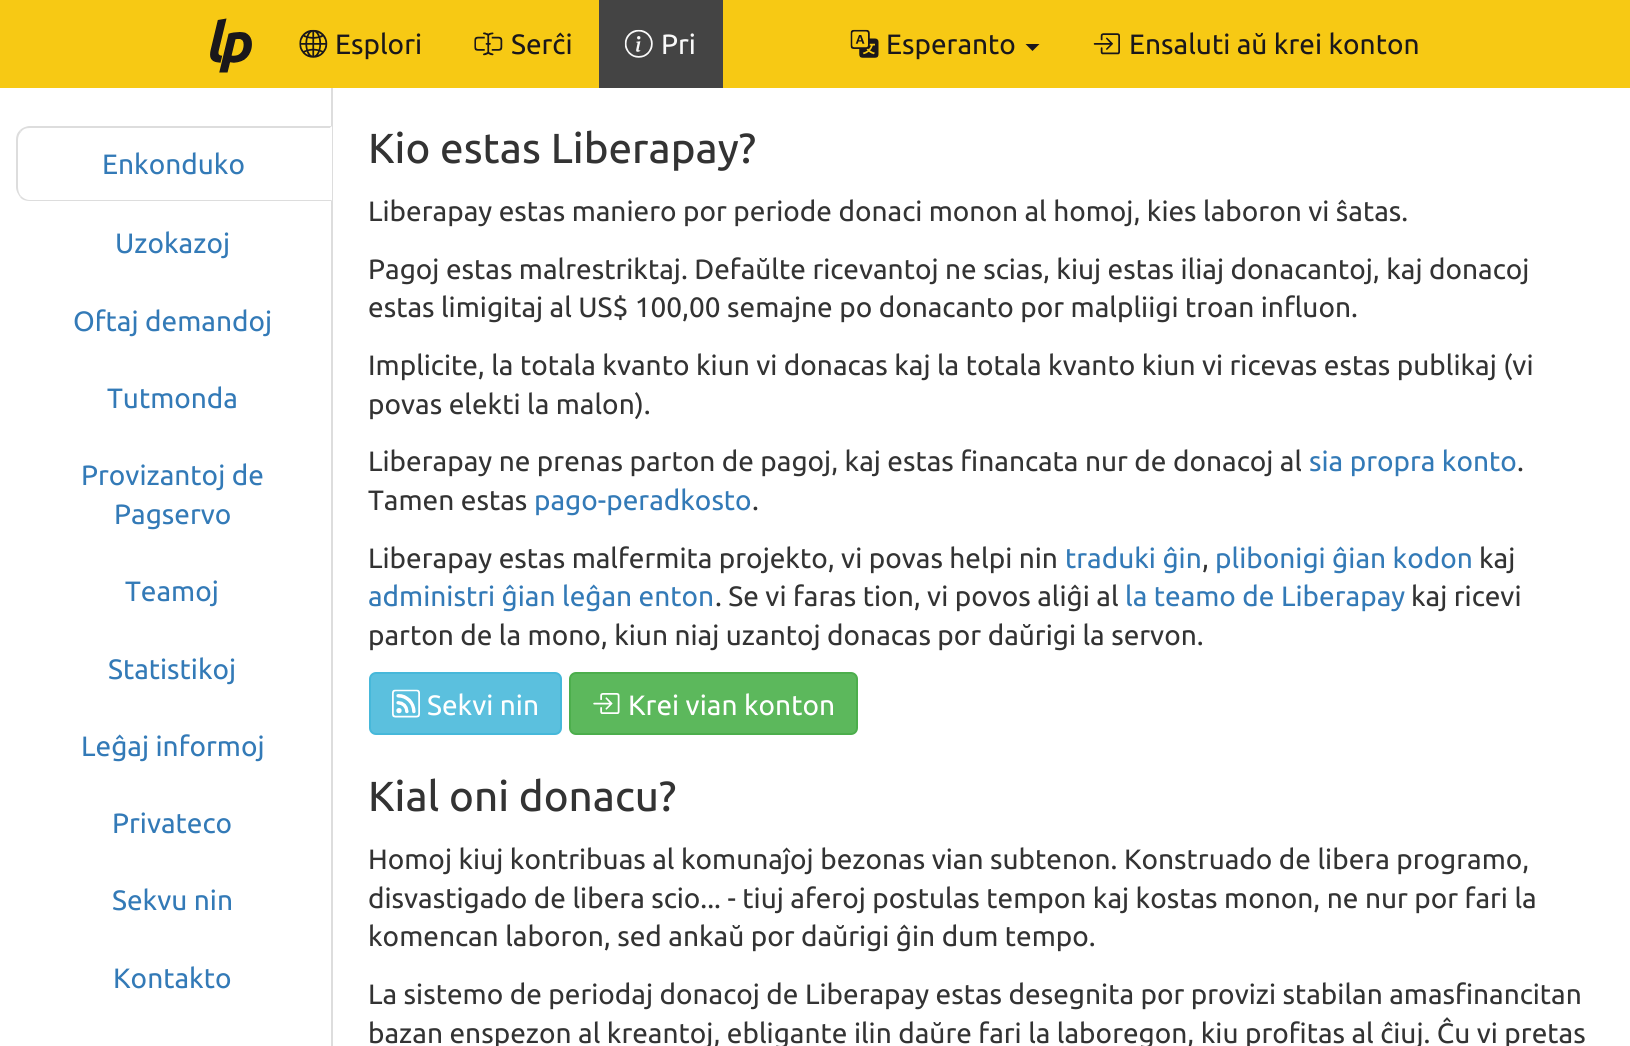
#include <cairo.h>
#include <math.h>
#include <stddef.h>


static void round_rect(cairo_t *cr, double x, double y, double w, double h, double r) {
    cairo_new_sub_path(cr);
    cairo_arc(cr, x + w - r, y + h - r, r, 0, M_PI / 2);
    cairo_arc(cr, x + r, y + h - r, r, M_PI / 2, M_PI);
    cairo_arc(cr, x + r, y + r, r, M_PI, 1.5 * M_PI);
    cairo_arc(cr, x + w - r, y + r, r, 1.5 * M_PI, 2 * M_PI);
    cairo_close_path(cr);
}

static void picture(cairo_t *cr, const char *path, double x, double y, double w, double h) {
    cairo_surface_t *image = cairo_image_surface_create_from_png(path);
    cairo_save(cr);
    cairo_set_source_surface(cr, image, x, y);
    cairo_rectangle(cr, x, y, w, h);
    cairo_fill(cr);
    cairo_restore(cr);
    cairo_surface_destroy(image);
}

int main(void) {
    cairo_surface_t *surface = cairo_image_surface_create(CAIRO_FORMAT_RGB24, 1630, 1046);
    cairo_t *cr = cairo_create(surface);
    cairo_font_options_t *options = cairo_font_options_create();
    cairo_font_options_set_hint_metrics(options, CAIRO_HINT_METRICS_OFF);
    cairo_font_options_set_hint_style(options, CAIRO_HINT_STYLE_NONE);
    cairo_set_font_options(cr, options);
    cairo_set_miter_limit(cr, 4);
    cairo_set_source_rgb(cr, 1, 1, 1);
    cairo_paint(cr);
    cairo_set_source_rgb(cr, 0.965, 0.788, 0.082);
    cairo_rectangle(cr, 0, 0, 1630, 88);
    cairo_fill(cr);
    picture(cr, "img1.png", 210, 18, 42, 55);
    picture(cr, "img2.png", 299, 29, 29, 29);
    cairo_select_font_face(cr, "Ubuntu", CAIRO_FONT_SLANT_NORMAL, CAIRO_FONT_WEIGHT_NORMAL);
    cairo_set_font_size(cr, 28);
    cairo_set_source_rgb(cr, 0.102, 0.09, 0.106);
    cairo_move_to(cr, 335, 54);
    cairo_show_text(cr, "Esplori");
    picture(cr, "img3.png", 474, 32, 29, 24);
    cairo_move_to(cr, 511, 54);
    cairo_show_text(cr, "Serĉi");
    cairo_set_source_rgb(cr, 0.267, 0.267, 0.267);
    cairo_rectangle(cr, 599, 0, 124, 88);
    cairo_fill(cr);
    picture(cr, "img4.png", 624, 29, 29, 29);
    cairo_set_source_rgb(cr, 0.976, 0.976, 0.976);
    cairo_move_to(cr, 661, 54);
    cairo_show_text(cr, "Pri");
    picture(cr, "img5.png", 850, 29, 29, 29);
    cairo_set_source_rgb(cr, 0.102, 0.09, 0.106);
    cairo_move_to(cr, 886, 54);
    cairo_show_text(cr, "Esperanto");
    cairo_new_path(cr);
    cairo_move_to(cr, 1025.5, 44);
    cairo_line_to(cr, 1039.5, 44);
    cairo_line_to(cr, 1032.5, 51);
    cairo_close_path(cr);
    cairo_fill(cr);
    picture(cr, "img6.png", 1093, 33, 27, 22);
    cairo_move_to(cr, 1129, 54);
    cairo_show_text(cr, "Ensaluti aŭ krei konton");
    cairo_set_source_rgb(cr, 0.867, 0.867, 0.867);
    cairo_rectangle(cr, 331, 88, 2, 958);
    cairo_fill(cr);
    cairo_new_path(cr);
    cairo_move_to(cr, 30, 126);
    cairo_curve_to(cr, 26, 126, 22, 128, 20, 130);
    cairo_line_to(cr, 21, 132);
    cairo_curve_to(cr, 23, 129, 26, 128, 30, 128);
    cairo_line_to(cr, 330, 128);
    cairo_line_to(cr, 332, 126);
    cairo_close_path(cr);
    cairo_fill(cr);
    cairo_set_source_rgb(cr, 1, 1, 1);
    cairo_new_path(cr);
    cairo_move_to(cr, 332, 126);
    cairo_line_to(cr, 332, 201);
    cairo_line_to(cr, 331, 200);
    cairo_line_to(cr, 331, 128);
    cairo_line_to(cr, 330, 128);
    cairo_close_path(cr);
    cairo_fill(cr);
    cairo_set_source_rgb(cr, 0.867, 0.867, 0.867);
    cairo_new_path(cr);
    cairo_move_to(cr, 332, 201);
    cairo_line_to(cr, 30, 201);
    cairo_curve_to(cr, 26, 201, 22, 200, 20, 197);
    cairo_line_to(cr, 21, 196);
    cairo_curve_to(cr, 23, 198, 26, 200, 30, 200);
    cairo_line_to(cr, 331, 200);
    cairo_close_path(cr);
    cairo_fill(cr);
    cairo_new_path(cr);
    cairo_move_to(cr, 20, 130);
    cairo_curve_to(cr, 17, 133, 16, 136, 16, 140);
    cairo_line_to(cr, 16, 187);
    cairo_curve_to(cr, 16, 191, 18, 194, 20, 197);
    cairo_line_to(cr, 21, 196);
    cairo_curve_to(cr, 19, 194, 18, 190, 18, 187);
    cairo_line_to(cr, 18, 140);
    cairo_curve_to(cr, 18, 137, 19, 134, 21, 132);
    cairo_close_path(cr);
    cairo_fill(cr);
    cairo_set_source_rgb(cr, 0.2, 0.478, 0.718);
    cairo_move_to(cr, 102, 174);
    cairo_show_text(cr, "Enkonduko");
    cairo_move_to(cr, 115, 253);
    cairo_show_text(cr, "Uzokazoj");
    cairo_move_to(cr, 73, 331);
    cairo_show_text(cr, "Oftaj demandoj");
    cairo_move_to(cr, 107, 408);
    cairo_show_text(cr, "Tutmonda");
    cairo_move_to(cr, 81, 485);
    cairo_show_text(cr, "Provizantoj de");
    cairo_move_to(cr, 114, 524);
    cairo_show_text(cr, "Pagservo");
    cairo_move_to(cr, 125, 601);
    cairo_show_text(cr, "Teamoj");
    cairo_move_to(cr, 108, 679);
    cairo_show_text(cr, "Statistikoj");
    cairo_move_to(cr, 81, 756);
    cairo_show_text(cr, "Leĝaj informoj");
    cairo_move_to(cr, 112, 833);
    cairo_show_text(cr, "Privateco");
    cairo_move_to(cr, 112, 910);
    cairo_show_text(cr, "Sekvu nin");
    cairo_move_to(cr, 113, 988);
    cairo_show_text(cr, "Kontakto");
    cairo_select_font_face(cr, "Ubuntu Medium", CAIRO_FONT_SLANT_NORMAL, CAIRO_FONT_WEIGHT_NORMAL);
    cairo_set_font_size(cr, 42);
    cairo_set_source_rgb(cr, 0.2, 0.2, 0.2);
    cairo_move_to(cr, 368, 163);
    cairo_show_text(cr, "Kio estas Liberapay?");
    cairo_select_font_face(cr, "Ubuntu", CAIRO_FONT_SLANT_NORMAL, CAIRO_FONT_WEIGHT_NORMAL);
    cairo_set_font_size(cr, 28);
    cairo_move_to(cr, 368, 221);
    cairo_show_text(cr, "Liberapay estas maniero por periode donaci monon al homoj, kies laboron vi ŝatas.");
    cairo_move_to(cr, 368, 279);
    cairo_show_text(cr, "Pagoj estas malrestriktaj. Defaŭlte ricevantoj ne scias, kiuj estas iliaj donacantoj, kaj donacoj");
    cairo_move_to(cr, 368, 317);
    cairo_show_text(cr, "estas limigitaj al US$ 100,00 semajne po donacanto por malpliigi troan influon.");
    cairo_move_to(cr, 368, 375);
    cairo_show_text(cr, "Implicite, la totala kvanto kiun vi donacas kaj la totala kvanto kiun vi ricevas estas publikaj (vi");
    cairo_move_to(cr, 368, 414);
    cairo_show_text(cr, "povas elekti la malon).");
    cairo_move_to(cr, 368, 471);
    cairo_show_text(cr, "Liberapay ne prenas parton de pagoj, kaj estas financata nur de donacoj al");
    cairo_set_source_rgb(cr, 0.2, 0.478, 0.718);
    cairo_move_to(cr, 1309, 471);
    cairo_show_text(cr, "sia propra konto");
    cairo_set_source_rgb(cr, 0.2, 0.2, 0.2);
    cairo_move_to(cr, 1517, 471);
    cairo_show_text(cr, ".");
    cairo_move_to(cr, 368, 510);
    cairo_show_text(cr, "Tamen estas");
    cairo_set_source_rgb(cr, 0.2, 0.478, 0.718);
    cairo_move_to(cr, 534, 510);
    cairo_show_text(cr, "pago-peradkosto");
    cairo_set_source_rgb(cr, 0.2, 0.2, 0.2);
    cairo_move_to(cr, 752, 510);
    cairo_show_text(cr, ".");
    cairo_move_to(cr, 368, 568);
    cairo_show_text(cr, "Liberapay estas malfermita projekto, vi povas helpi nin");
    cairo_set_source_rgb(cr, 0.2, 0.478, 0.718);
    cairo_move_to(cr, 1065, 568);
    cairo_show_text(cr, "traduki ĝin");
    cairo_set_source_rgb(cr, 0.2, 0.2, 0.2);
    cairo_move_to(cr, 1202, 568);
    cairo_show_text(cr, ",");
    cairo_set_source_rgb(cr, 0.2, 0.478, 0.718);
    cairo_move_to(cr, 1215, 568);
    cairo_show_text(cr, "plibonigi ĝian kodon");
    cairo_set_source_rgb(cr, 0.2, 0.2, 0.2);
    cairo_move_to(cr, 1479, 568);
    cairo_show_text(cr, "kaj");
    cairo_set_source_rgb(cr, 0.2, 0.478, 0.718);
    cairo_move_to(cr, 368, 606);
    cairo_show_text(cr, "administri ĝian leĝan enton");
    cairo_set_source_rgb(cr, 0.2, 0.2, 0.2);
    cairo_move_to(cr, 715, 606);
    cairo_show_text(cr, ". Se vi faras tion, vi povos aliĝi al");
    cairo_set_source_rgb(cr, 0.2, 0.478, 0.718);
    cairo_move_to(cr, 1125, 606);
    cairo_show_text(cr, "la teamo de Liberapay");
    cairo_set_source_rgb(cr, 0.2, 0.2, 0.2);
    cairo_move_to(cr, 1411, 606);
    cairo_show_text(cr, "kaj ricevi");
    cairo_move_to(cr, 368, 645);
    cairo_show_text(cr, "parton de la mono, kiun niaj uzantoj donacas por daŭrigi la servon.");
    cairo_set_source_rgb(cr, 0.357, 0.753, 0.871);
    round_rect(cr, 370, 673, 191, 61, 6);
    cairo_fill_preserve(cr);
    cairo_set_source_rgb(cr, 0.275, 0.722, 0.855);
    cairo_stroke(cr);
    picture(cr, "img7.png", 392, 689, 28, 29);
    cairo_set_source_rgb(cr, 1, 1, 1);
    cairo_move_to(cr, 427, 715);
    cairo_show_text(cr, "Sekvi nin");
    cairo_set_source_rgb(cr, 0.361, 0.722, 0.361);
    round_rect(cr, 570, 673, 287, 61, 6);
    cairo_fill_preserve(cr);
    cairo_set_source_rgb(cr, 0.298, 0.682, 0.298);
    cairo_stroke(cr);
    picture(cr, "img8.png", 593, 693, 27, 21);
    cairo_set_source_rgb(cr, 1, 1, 1);
    cairo_move_to(cr, 628, 715);
    cairo_show_text(cr, "Krei vian konton");
    cairo_select_font_face(cr, "Ubuntu Medium", CAIRO_FONT_SLANT_NORMAL, CAIRO_FONT_WEIGHT_NORMAL);
    cairo_set_font_size(cr, 42);
    cairo_set_source_rgb(cr, 0.2, 0.2, 0.2);
    cairo_move_to(cr, 368, 811);
    cairo_show_text(cr, "Kial oni donacu?");
    cairo_select_font_face(cr, "Ubuntu", CAIRO_FONT_SLANT_NORMAL, CAIRO_FONT_WEIGHT_NORMAL);
    cairo_set_font_size(cr, 28);
    cairo_move_to(cr, 368, 869);
    cairo_show_text(cr, "Homoj kiuj kontribuas al komunaĵoj bezonas vian subtenon. Konstruado de libera programo,");
    cairo_move_to(cr, 368, 908);
    cairo_show_text(cr, "disvastigado de libera scio... - tiuj aferoj postulas tempon kaj kostas monon, ne nur por fari la");
    cairo_move_to(cr, 368, 946);
    cairo_show_text(cr, "komencan laboron, sed ankaŭ por daŭrigi ĝin dum tempo.");
    cairo_move_to(cr, 368, 1004);
    cairo_show_text(cr, "La sistemo de periodaj donacoj de Liberapay estas desegnita por provizi stabilan amasfinancitan");
    cairo_move_to(cr, 368, 1043);
    cairo_show_text(cr, "bazan enspezon al kreantoj, ebligante ilin daŭre fari la laboregon, kiu profitas al ĉiuj. Ĉu vi pretas");
    cairo_surface_write_to_png(surface, "page.png");
    cairo_font_options_destroy(options);
    cairo_destroy(cr);
    cairo_surface_destroy(surface);
    return 0;
}
